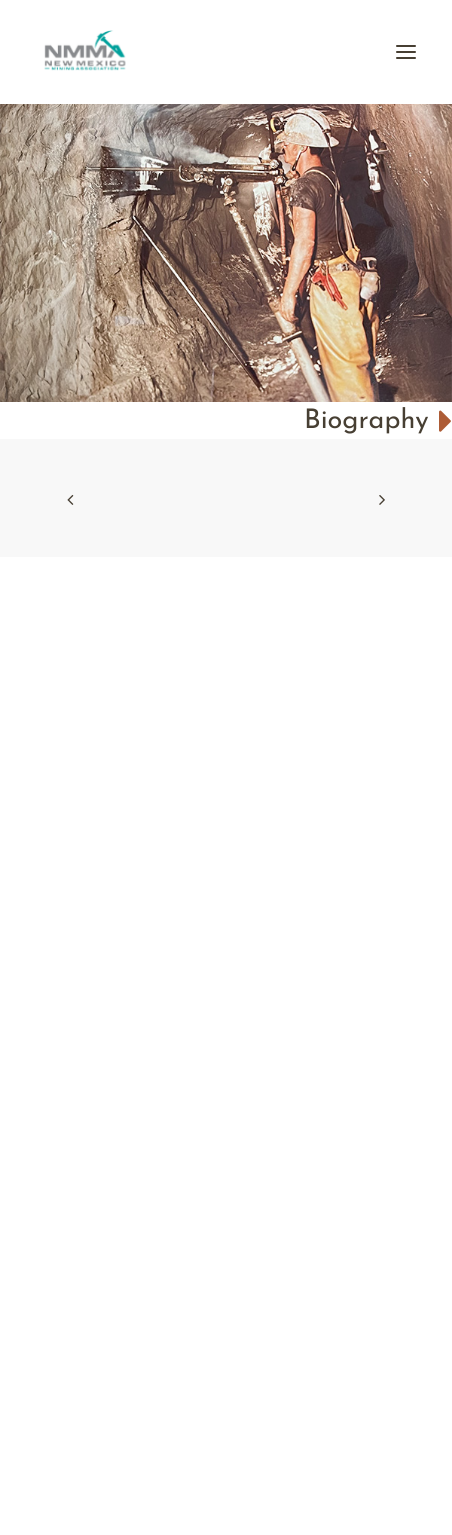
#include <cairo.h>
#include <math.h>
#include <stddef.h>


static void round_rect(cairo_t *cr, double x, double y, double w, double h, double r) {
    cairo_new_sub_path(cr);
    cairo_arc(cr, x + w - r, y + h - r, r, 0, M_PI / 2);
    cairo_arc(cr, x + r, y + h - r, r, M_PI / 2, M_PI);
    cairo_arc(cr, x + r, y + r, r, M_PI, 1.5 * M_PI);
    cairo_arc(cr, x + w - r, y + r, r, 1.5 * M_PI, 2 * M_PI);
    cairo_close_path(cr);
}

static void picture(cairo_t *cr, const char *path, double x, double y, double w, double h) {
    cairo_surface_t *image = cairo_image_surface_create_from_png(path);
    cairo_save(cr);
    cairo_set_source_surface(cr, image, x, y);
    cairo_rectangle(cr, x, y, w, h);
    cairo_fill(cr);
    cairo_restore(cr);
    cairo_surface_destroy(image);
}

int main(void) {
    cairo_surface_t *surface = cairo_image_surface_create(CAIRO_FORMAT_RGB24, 452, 1535);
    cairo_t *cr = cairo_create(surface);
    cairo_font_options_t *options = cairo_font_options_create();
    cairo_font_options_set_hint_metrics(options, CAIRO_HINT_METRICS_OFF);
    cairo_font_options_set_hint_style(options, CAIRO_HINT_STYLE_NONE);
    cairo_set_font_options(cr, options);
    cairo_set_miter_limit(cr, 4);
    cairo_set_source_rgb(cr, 1, 1, 1);
    cairo_paint(cr);
    picture(cr, "img1.png", 44, 30, 82, 41);
    cairo_set_source_rgb(cr, 0.278, 0.247, 0.2);
    round_rect(cr, 396, 51, 20, 2, 1);
    cairo_fill(cr);
    round_rect(cr, 396, 45, 20, 2, 1);
    cairo_fill(cr);
    round_rect(cr, 396, 57, 20, 2, 1);
    cairo_fill(cr);
    picture(cr, "img2.png", 0, 104, 452, 298);
    cairo_select_font_face(cr, "Josefin Sans Thin", CAIRO_FONT_SLANT_NORMAL, CAIRO_FONT_WEIGHT_NORMAL);
    cairo_set_font_size(cr, 27);
    cairo_move_to(cr, 304, 428);
    cairo_show_text(cr, "Biography");
    picture(cr, "img3.png", 439, 410, 12, 22);
    cairo_set_source_rgb(cr, 0.969, 0.969, 0.969);
    cairo_rectangle(cr, 0, 439, 452, 118);
    cairo_fill(cr);
    picture(cr, "img4.png", 67, 494, 7, 11);
    picture(cr, "img5.png", 379, 495, 6, 10);
    cairo_surface_write_to_png(surface, "page.png");
    cairo_font_options_destroy(options);
    cairo_destroy(cr);
    cairo_surface_destroy(surface);
    return 0;
}
